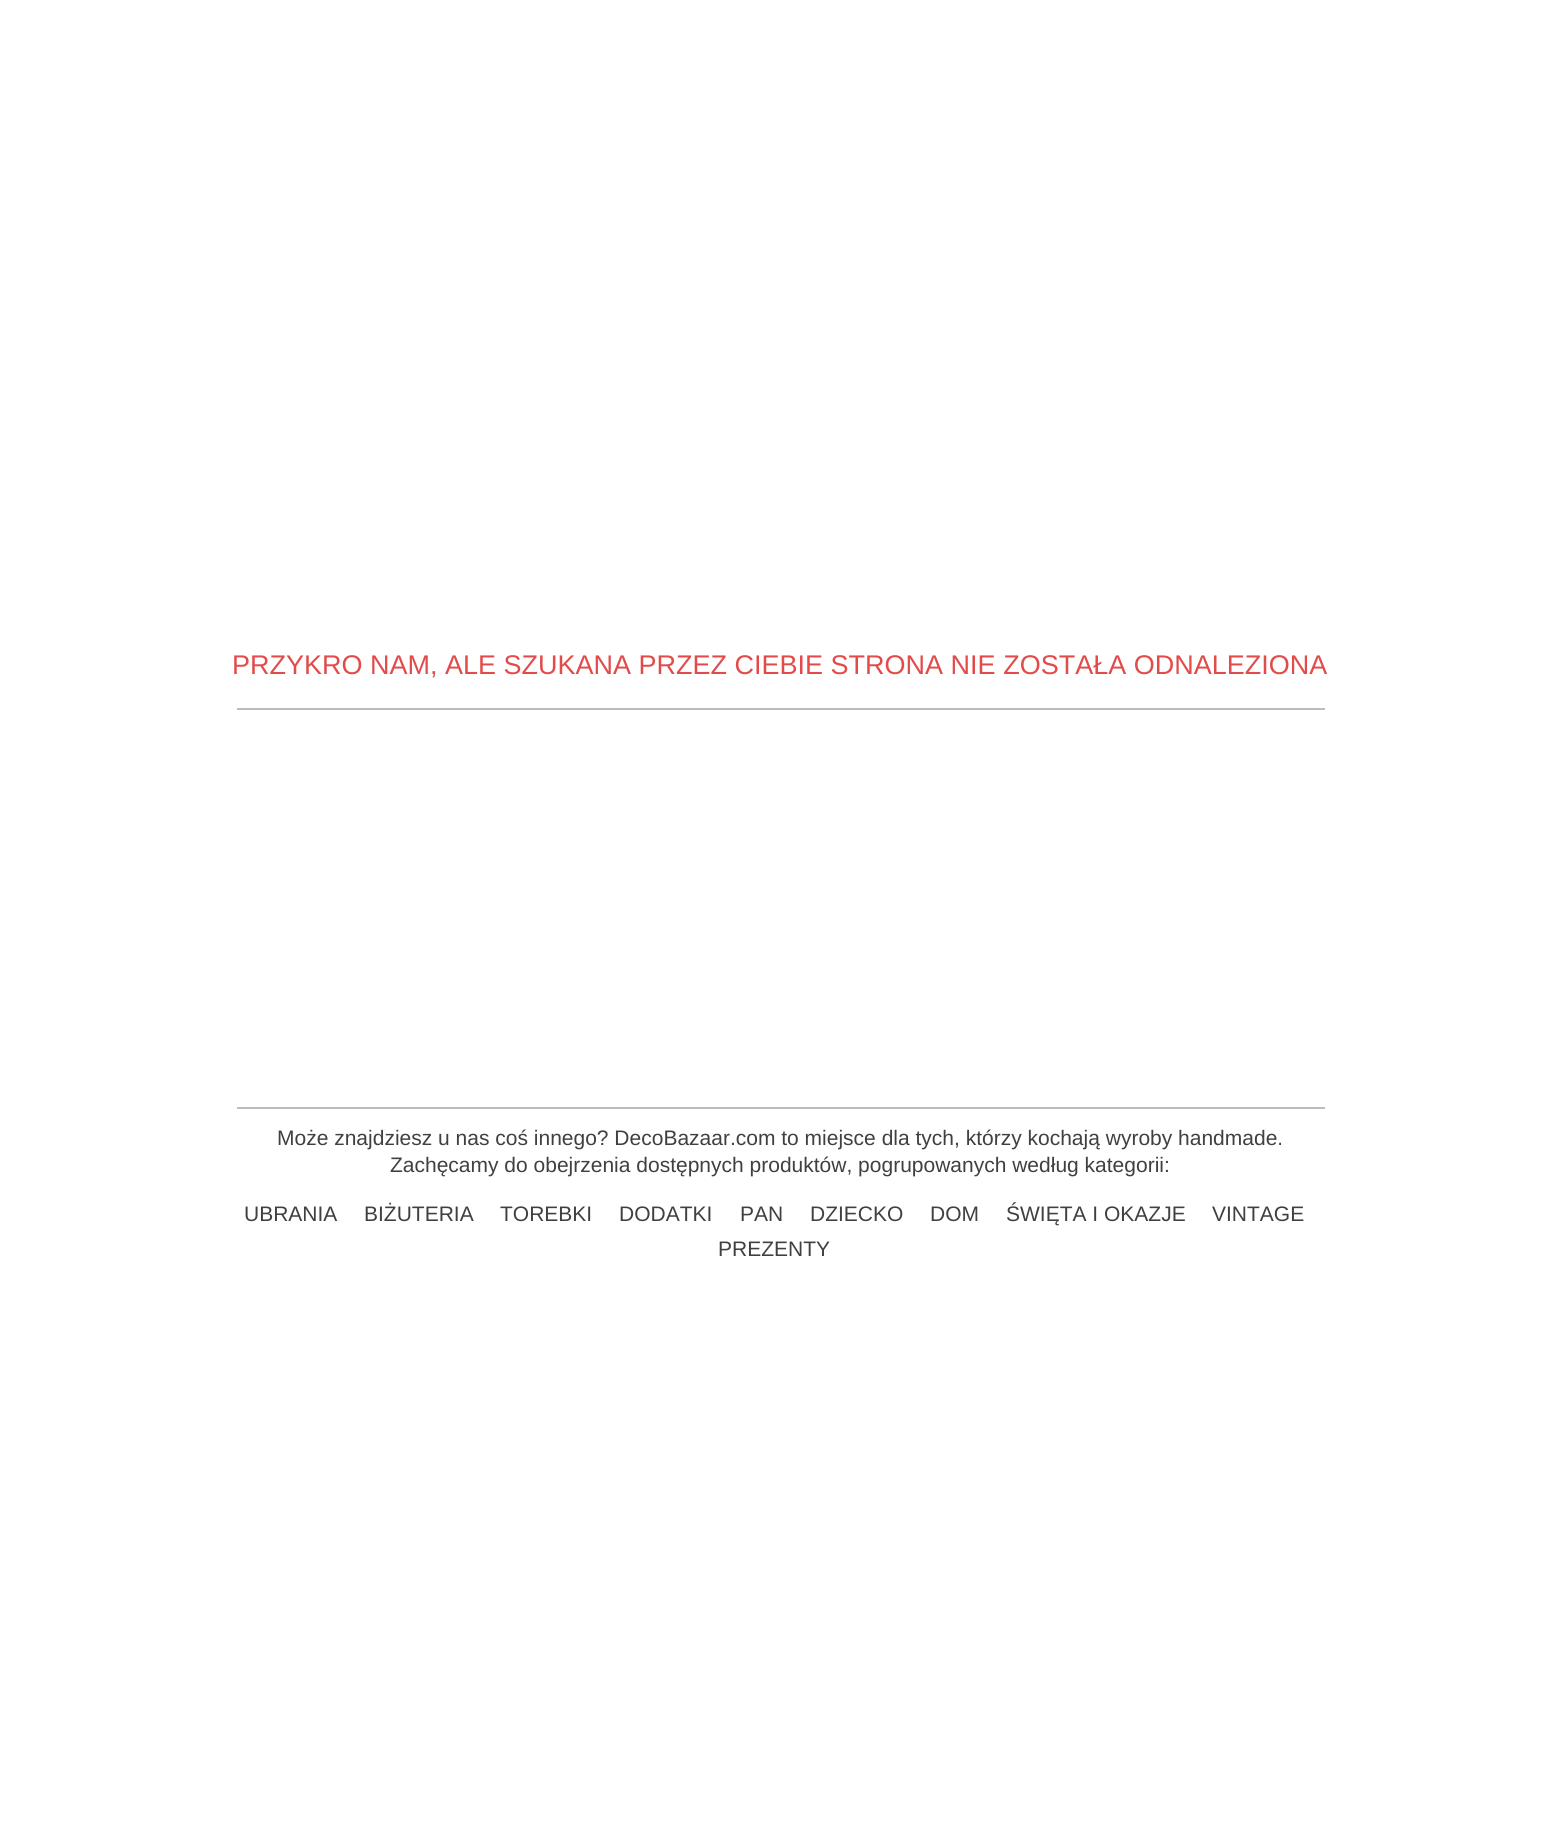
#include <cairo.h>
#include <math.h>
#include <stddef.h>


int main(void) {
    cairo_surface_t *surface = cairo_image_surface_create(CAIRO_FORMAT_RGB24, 1560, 1825);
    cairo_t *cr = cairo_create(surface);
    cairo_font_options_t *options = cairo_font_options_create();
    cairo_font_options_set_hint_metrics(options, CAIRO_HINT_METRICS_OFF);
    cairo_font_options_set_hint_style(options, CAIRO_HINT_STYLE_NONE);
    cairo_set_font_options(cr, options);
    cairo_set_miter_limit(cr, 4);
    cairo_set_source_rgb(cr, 1, 1, 1);
    cairo_paint(cr);
    cairo_select_font_face(cr, "Liberation Sans", CAIRO_FONT_SLANT_NORMAL, CAIRO_FONT_WEIGHT_NORMAL);
    cairo_set_font_size(cr, 27);
    cairo_set_source_rgb(cr, 0.89, 0.294, 0.294);
    cairo_move_to(cr, 232, 674);
    cairo_show_text(cr, "PRZYKRO NAM, ALE SZUKANA PRZEZ CIEBIE STRONA NIE ZOSTAŁA ODNALEZIONA");
    cairo_set_source_rgb(cr, 0.737, 0.737, 0.737);
    cairo_rectangle(cr, 237, 708, 1088, 2);
    cairo_fill(cr);
    cairo_rectangle(cr, 237, 1107, 1088, 2);
    cairo_fill(cr);
    cairo_set_font_size(cr, 21);
    cairo_set_source_rgb(cr, 0.251, 0.251, 0.255);
    cairo_move_to(cr, 277, 1145);
    cairo_show_text(cr, "Może znajdziesz u nas coś innego? DecoBazaar.com to miejsce dla tych, którzy kochają wyroby handmade.");
    cairo_move_to(cr, 390, 1172);
    cairo_show_text(cr, "Zachęcamy do obejrzenia dostępnych produktów, pogrupowanych według kategorii:");
    cairo_move_to(cr, 244, 1221);
    cairo_show_text(cr, "UBRANIA");
    cairo_move_to(cr, 364, 1221);
    cairo_show_text(cr, "BIŻUTERIA");
    cairo_move_to(cr, 500, 1221);
    cairo_show_text(cr, "TOREBKI");
    cairo_move_to(cr, 619, 1221);
    cairo_show_text(cr, "DODATKI");
    cairo_move_to(cr, 740, 1221);
    cairo_show_text(cr, "PAN");
    cairo_move_to(cr, 810, 1221);
    cairo_show_text(cr, "DZIECKO");
    cairo_move_to(cr, 930, 1221);
    cairo_show_text(cr, "DOM");
    cairo_move_to(cr, 1006, 1221);
    cairo_show_text(cr, "ŚWIĘTA I OKAZJE");
    cairo_move_to(cr, 1212, 1221);
    cairo_show_text(cr, "VINTAGE");
    cairo_move_to(cr, 718, 1256);
    cairo_show_text(cr, "PREZENTY");
    cairo_surface_write_to_png(surface, "page.png");
    cairo_font_options_destroy(options);
    cairo_destroy(cr);
    cairo_surface_destroy(surface);
    return 0;
}
